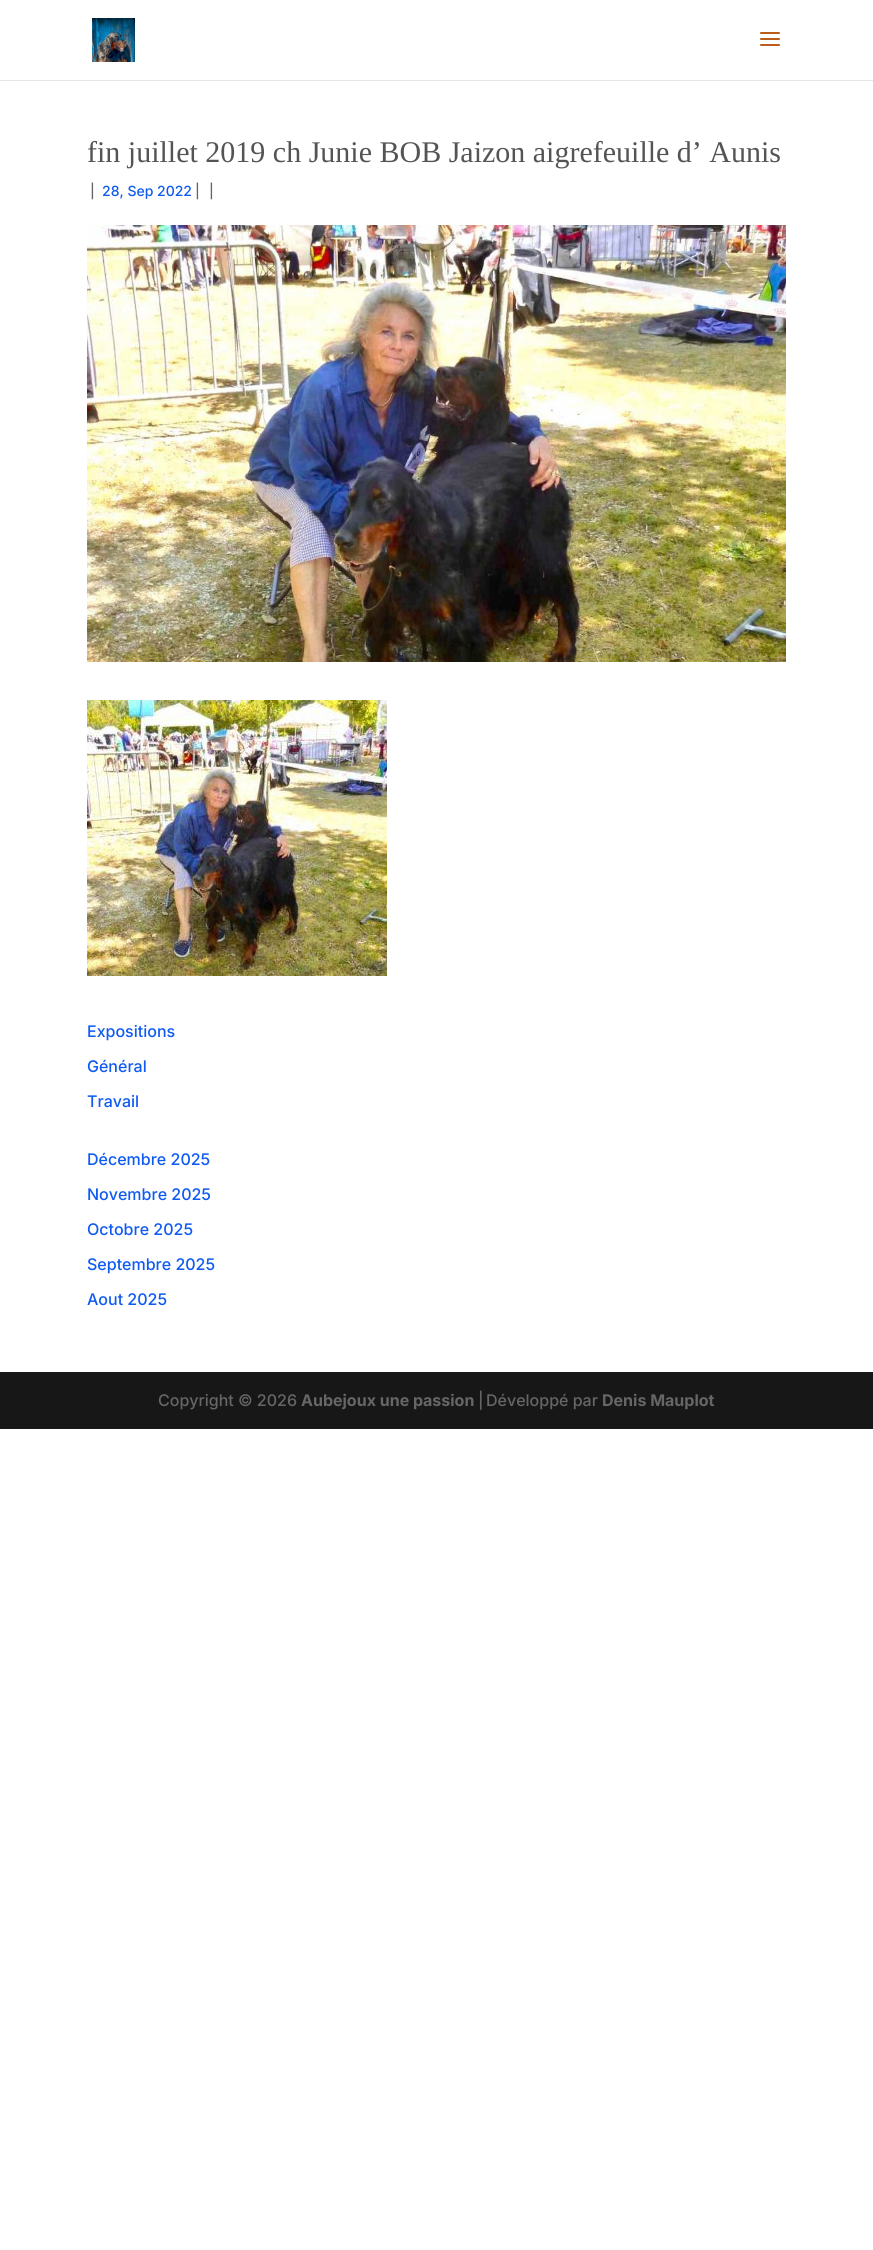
#include <cairo.h>
#include <math.h>
#include <stddef.h>


static void picture(cairo_t *cr, const char *path, double x, double y, double w, double h) {
    cairo_surface_t *image = cairo_image_surface_create_from_png(path);
    cairo_save(cr);
    cairo_set_source_surface(cr, image, x, y);
    cairo_rectangle(cr, x, y, w, h);
    cairo_fill(cr);
    cairo_restore(cr);
    cairo_surface_destroy(image);
}

int main(void) {
    cairo_surface_t *surface = cairo_image_surface_create(CAIRO_FORMAT_RGB24, 873, 2250);
    cairo_t *cr = cairo_create(surface);
    cairo_font_options_t *options = cairo_font_options_create();
    cairo_font_options_set_hint_metrics(options, CAIRO_HINT_METRICS_OFF);
    cairo_font_options_set_hint_style(options, CAIRO_HINT_STYLE_NONE);
    cairo_set_font_options(cr, options);
    cairo_set_miter_limit(cr, 4);
    cairo_set_source_rgb(cr, 1, 1, 1);
    cairo_paint(cr);
    cairo_set_source_rgb(cr, 0.902, 0.902, 0.902);
    cairo_rectangle(cr, 0, 80, 873, 1);
    cairo_fill(cr);
    picture(cr, "img1.png", 92, 18, 43, 44);
    picture(cr, "img2.png", 760, 32, 20, 14);
    cairo_select_font_face(cr, "Liberation Serif", CAIRO_FONT_SLANT_NORMAL, CAIRO_FONT_WEIGHT_NORMAL);
    cairo_set_font_size(cr, 30);
    cairo_set_source_rgb(cr, 0.329, 0.329, 0.329);
    cairo_move_to(cr, 87, 162);
    cairo_show_text(cr, "fin juillet 2019 ch Junie BOB Jaizon aigrefeuille d’ Aunis");
    cairo_select_font_face(cr, "Inter Medium", CAIRO_FONT_SLANT_NORMAL, CAIRO_FONT_WEIGHT_NORMAL);
    cairo_set_font_size(cr, 14);
    cairo_set_source_rgb(cr, 0.4, 0.4, 0.4);
    cairo_move_to(cr, 90, 196);
    cairo_show_text(cr, "|");
    cairo_set_source_rgb(cr, 0.055, 0.353, 0.949);
    cairo_move_to(cr, 102, 196);
    cairo_show_text(cr, "28, Sep 2022");
    cairo_set_source_rgb(cr, 0.4, 0.4, 0.4);
    cairo_move_to(cr, 195, 196);
    cairo_show_text(cr, "|");
    cairo_move_to(cr, 209, 196);
    cairo_show_text(cr, "|");
    picture(cr, "img3.png", 87, 225, 699, 437);
    picture(cr, "img4.png", 87, 700, 300, 276);
    cairo_set_font_size(cr, 16);
    cairo_set_source_rgb(cr, 0.055, 0.353, 0.949);
    cairo_move_to(cr, 87, 1037);
    cairo_show_text(cr, "Expositions");
    cairo_move_to(cr, 87, 1072);
    cairo_show_text(cr, "Général");
    cairo_move_to(cr, 87, 1107);
    cairo_show_text(cr, "Travail");
    cairo_move_to(cr, 87, 1165);
    cairo_show_text(cr, "Décembre 2025");
    cairo_move_to(cr, 87, 1200);
    cairo_show_text(cr, "Novembre 2025");
    cairo_move_to(cr, 87, 1235);
    cairo_show_text(cr, "Octobre 2025");
    cairo_move_to(cr, 87, 1270);
    cairo_show_text(cr, "Septembre 2025");
    cairo_move_to(cr, 87, 1305);
    cairo_show_text(cr, "Aout 2025");
    cairo_set_source_rgb(cr, 0.09, 0.09, 0.09);
    cairo_rectangle(cr, 0, 1372, 873, 57);
    cairo_fill(cr);
    cairo_set_source_rgb(cr, 0.4, 0.4, 0.4);
    cairo_move_to(cr, 158, 1406);
    cairo_show_text(cr, "Copyright © 2026");
    cairo_select_font_face(cr, "Inter", CAIRO_FONT_SLANT_NORMAL, CAIRO_FONT_WEIGHT_BOLD);
    cairo_move_to(cr, 301, 1406);
    cairo_show_text(cr, "Aubejoux une passion");
    cairo_select_font_face(cr, "Inter Medium", CAIRO_FONT_SLANT_NORMAL, CAIRO_FONT_WEIGHT_NORMAL);
    cairo_move_to(cr, 478, 1406);
    cairo_show_text(cr, "|");
    cairo_move_to(cr, 486, 1406);
    cairo_show_text(cr, "Développé par");
    cairo_select_font_face(cr, "Inter", CAIRO_FONT_SLANT_NORMAL, CAIRO_FONT_WEIGHT_BOLD);
    cairo_move_to(cr, 602, 1406);
    cairo_show_text(cr, "Denis Mauplot");
    cairo_surface_write_to_png(surface, "page.png");
    cairo_font_options_destroy(options);
    cairo_destroy(cr);
    cairo_surface_destroy(surface);
    return 0;
}
